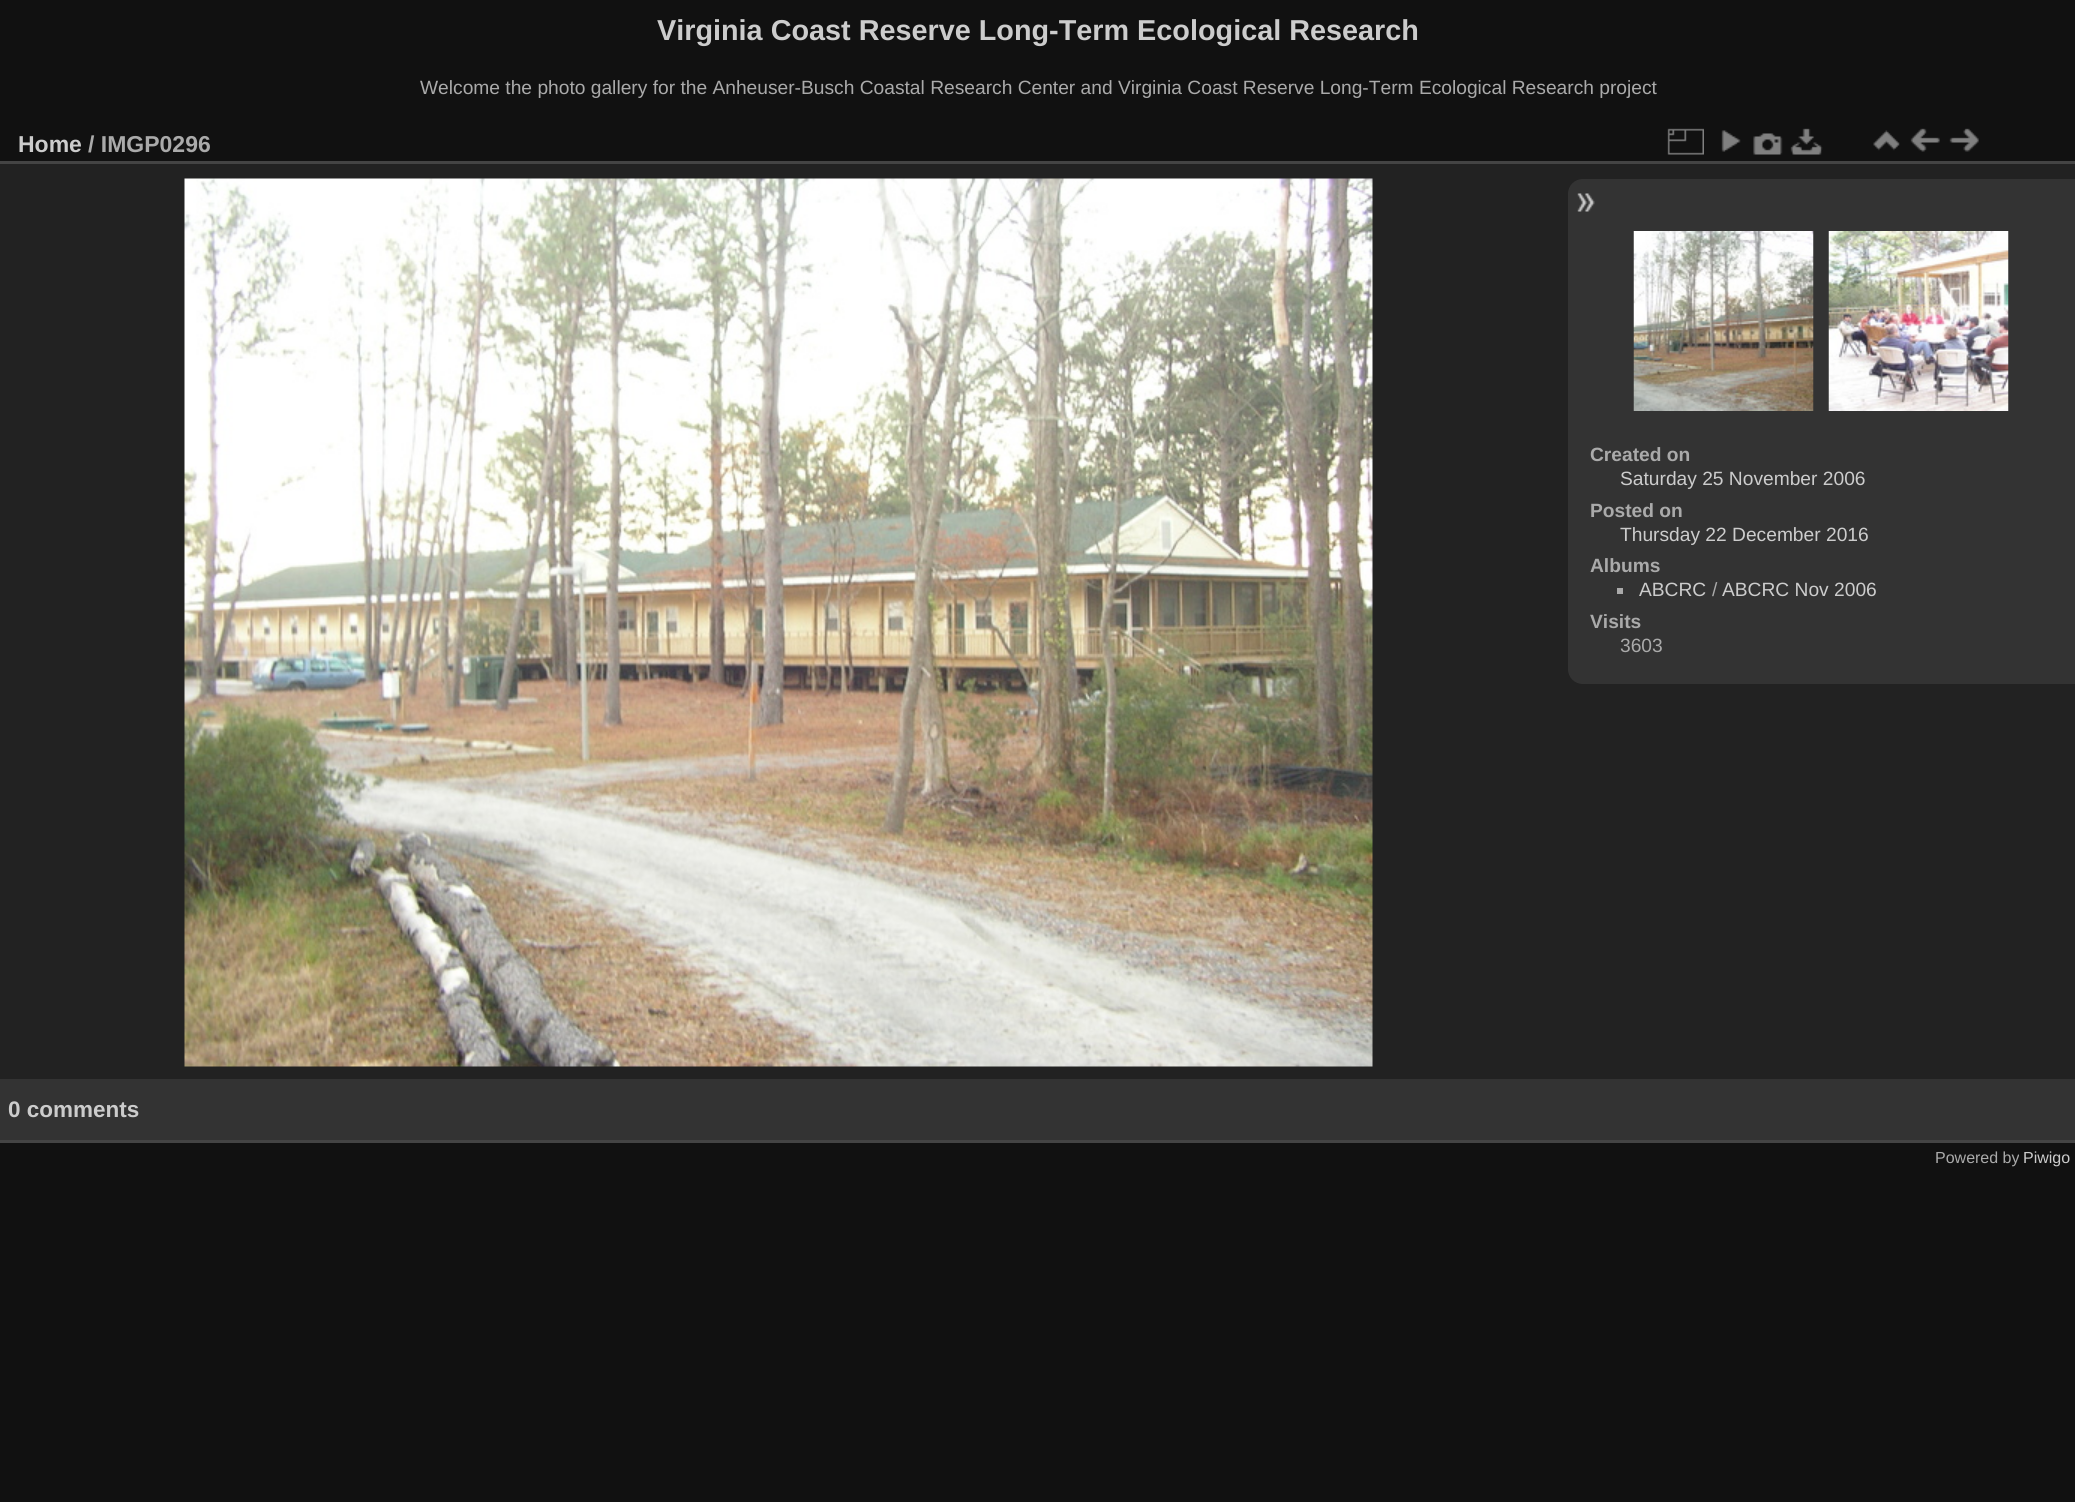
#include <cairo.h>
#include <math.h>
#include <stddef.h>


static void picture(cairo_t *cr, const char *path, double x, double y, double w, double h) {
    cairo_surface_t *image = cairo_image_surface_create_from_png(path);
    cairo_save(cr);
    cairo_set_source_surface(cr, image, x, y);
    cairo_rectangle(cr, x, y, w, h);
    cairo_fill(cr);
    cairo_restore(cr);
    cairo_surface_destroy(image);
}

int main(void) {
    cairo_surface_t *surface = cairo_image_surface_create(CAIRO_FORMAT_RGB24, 2075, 1502);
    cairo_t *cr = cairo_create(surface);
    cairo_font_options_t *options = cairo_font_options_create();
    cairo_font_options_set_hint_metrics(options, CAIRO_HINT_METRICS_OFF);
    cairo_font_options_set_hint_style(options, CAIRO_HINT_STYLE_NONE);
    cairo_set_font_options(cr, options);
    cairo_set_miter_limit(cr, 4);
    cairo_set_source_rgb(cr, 0.067, 0.067, 0.067);
    cairo_paint(cr);
    cairo_select_font_face(cr, "Liberation Sans", CAIRO_FONT_SLANT_NORMAL, CAIRO_FONT_WEIGHT_BOLD);
    cairo_set_font_size(cr, 28.8);
    cairo_set_source_rgb(cr, 0.8, 0.8, 0.8);
    cairo_move_to(cr, 657, 40);
    cairo_show_text(cr, "Virginia Coast Reserve Long-Term Ecological Research");
    cairo_select_font_face(cr, "Liberation Sans", CAIRO_FONT_SLANT_NORMAL, CAIRO_FONT_WEIGHT_NORMAL);
    cairo_set_font_size(cr, 19.2);
    cairo_set_source_rgb(cr, 0.667, 0.667, 0.667);
    cairo_move_to(cr, 420, 94);
    cairo_show_text(cr, "Welcome the photo gallery for the Anheuser-Busch Coastal Research Center and Virginia Coast Reserve Long-Term Ecological Research project");
    cairo_set_source_rgb(cr, 0.133, 0.133, 0.133);
    cairo_rectangle(cr, 0, 164, 2075, 915);
    cairo_fill(cr);
    cairo_set_source_rgb(cr, 0.267, 0.267, 0.267);
    cairo_rectangle(cr, 0, 1140, 2075, 3);
    cairo_fill(cr);
    cairo_rectangle(cr, 0, 161, 2075, 3);
    cairo_fill(cr);
    cairo_select_font_face(cr, "Liberation Sans", CAIRO_FONT_SLANT_NORMAL, CAIRO_FONT_WEIGHT_BOLD);
    cairo_set_font_size(cr, 23);
    cairo_set_source_rgb(cr, 0.8, 0.8, 0.8);
    cairo_move_to(cr, 18, 152);
    cairo_show_text(cr, "Home");
    cairo_set_source_rgb(cr, 0.667, 0.667, 0.667);
    cairo_move_to(cr, 88, 152);
    cairo_show_text(cr, "/ IMGP0296");
    picture(cr, "img1.png", 1667, 128, 37, 27);
    picture(cr, "img2.png", 1721, 130, 20, 22);
    picture(cr, "img3.png", 1753, 133, 30, 22);
    picture(cr, "img4.png", 1790, 128, 33, 27);
    picture(cr, "img5.png", 1873, 130, 27, 21);
    picture(cr, "img6.png", 1910, 128, 30, 24);
    picture(cr, "img7.png", 1949, 128, 30, 24);
    picture(cr, "img8.png", 184, 178, 1189, 889);
    cairo_set_source_rgb(cr, 0.2, 0.2, 0.2);
    cairo_new_path(cr);
    cairo_move_to(cr, 1583, 179);
    cairo_line_to(cr, 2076, 179);
    cairo_line_to(cr, 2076, 684);
    cairo_line_to(cr, 1583, 684);
    cairo_curve_to(cr, 1574.5, 684, 1568, 677.5, 1568, 669);
    cairo_line_to(cr, 1568, 194);
    cairo_curve_to(cr, 1568, 185.5, 1574.5, 179, 1583, 179);
    cairo_close_path(cr);
    cairo_fill(cr);
    picture(cr, "img9.png", 1577, 193, 18, 19);
    picture(cr, "img10.png", 1633, 231, 181, 180);
    picture(cr, "img11.png", 1828, 231, 181, 180);
    cairo_set_font_size(cr, 19.2);
    cairo_set_source_rgb(cr, 0.667, 0.667, 0.667);
    cairo_move_to(cr, 1590, 461);
    cairo_show_text(cr, "Created on");
    cairo_select_font_face(cr, "Liberation Sans", CAIRO_FONT_SLANT_NORMAL, CAIRO_FONT_WEIGHT_NORMAL);
    cairo_set_source_rgb(cr, 0.8, 0.8, 0.8);
    cairo_move_to(cr, 1620, 485);
    cairo_show_text(cr, "Saturday 25 November 2006");
    cairo_select_font_face(cr, "Liberation Sans", CAIRO_FONT_SLANT_NORMAL, CAIRO_FONT_WEIGHT_BOLD);
    cairo_set_source_rgb(cr, 0.667, 0.667, 0.667);
    cairo_move_to(cr, 1590, 517);
    cairo_show_text(cr, "Posted on");
    cairo_select_font_face(cr, "Liberation Sans", CAIRO_FONT_SLANT_NORMAL, CAIRO_FONT_WEIGHT_NORMAL);
    cairo_set_source_rgb(cr, 0.8, 0.8, 0.8);
    cairo_move_to(cr, 1620, 541);
    cairo_show_text(cr, "Thursday 22 December 2016");
    cairo_select_font_face(cr, "Liberation Sans", CAIRO_FONT_SLANT_NORMAL, CAIRO_FONT_WEIGHT_BOLD);
    cairo_set_source_rgb(cr, 0.667, 0.667, 0.667);
    cairo_move_to(cr, 1590, 572);
    cairo_show_text(cr, "Albums");
    cairo_rectangle(cr, 1617, 588, 6, 6);
    cairo_fill(cr);
    cairo_select_font_face(cr, "Liberation Sans", CAIRO_FONT_SLANT_NORMAL, CAIRO_FONT_WEIGHT_NORMAL);
    cairo_set_source_rgb(cr, 0.8, 0.8, 0.8);
    cairo_move_to(cr, 1639, 596);
    cairo_show_text(cr, "ABCRC");
    cairo_set_source_rgb(cr, 0.667, 0.667, 0.667);
    cairo_move_to(cr, 1712, 596);
    cairo_show_text(cr, "/");
    cairo_set_source_rgb(cr, 0.8, 0.8, 0.8);
    cairo_move_to(cr, 1722, 596);
    cairo_show_text(cr, "ABCRC Nov 2006");
    cairo_select_font_face(cr, "Liberation Sans", CAIRO_FONT_SLANT_NORMAL, CAIRO_FONT_WEIGHT_BOLD);
    cairo_set_source_rgb(cr, 0.667, 0.667, 0.667);
    cairo_move_to(cr, 1590, 628);
    cairo_show_text(cr, "Visits");
    cairo_select_font_face(cr, "Liberation Sans", CAIRO_FONT_SLANT_NORMAL, CAIRO_FONT_WEIGHT_NORMAL);
    cairo_move_to(cr, 1620, 652);
    cairo_show_text(cr, "3603");
    cairo_set_source_rgb(cr, 0.2, 0.2, 0.2);
    cairo_rectangle(cr, 0, 1079, 2075, 61);
    cairo_fill(cr);
    cairo_select_font_face(cr, "Liberation Sans", CAIRO_FONT_SLANT_NORMAL, CAIRO_FONT_WEIGHT_BOLD);
    cairo_set_font_size(cr, 22.5);
    cairo_set_source_rgb(cr, 0.8, 0.8, 0.8);
    cairo_move_to(cr, 8, 1117);
    cairo_show_text(cr, "0 comments");
    cairo_select_font_face(cr, "Liberation Sans", CAIRO_FONT_SLANT_NORMAL, CAIRO_FONT_WEIGHT_NORMAL);
    cairo_set_font_size(cr, 16);
    cairo_set_source_rgb(cr, 0.667, 0.667, 0.667);
    cairo_move_to(cr, 1935, 1163);
    cairo_show_text(cr, "Powered by");
    cairo_set_source_rgb(cr, 0.8, 0.8, 0.8);
    cairo_move_to(cr, 2023, 1163);
    cairo_show_text(cr, "Piwigo");
    cairo_surface_write_to_png(surface, "page.png");
    cairo_font_options_destroy(options);
    cairo_destroy(cr);
    cairo_surface_destroy(surface);
    return 0;
}
